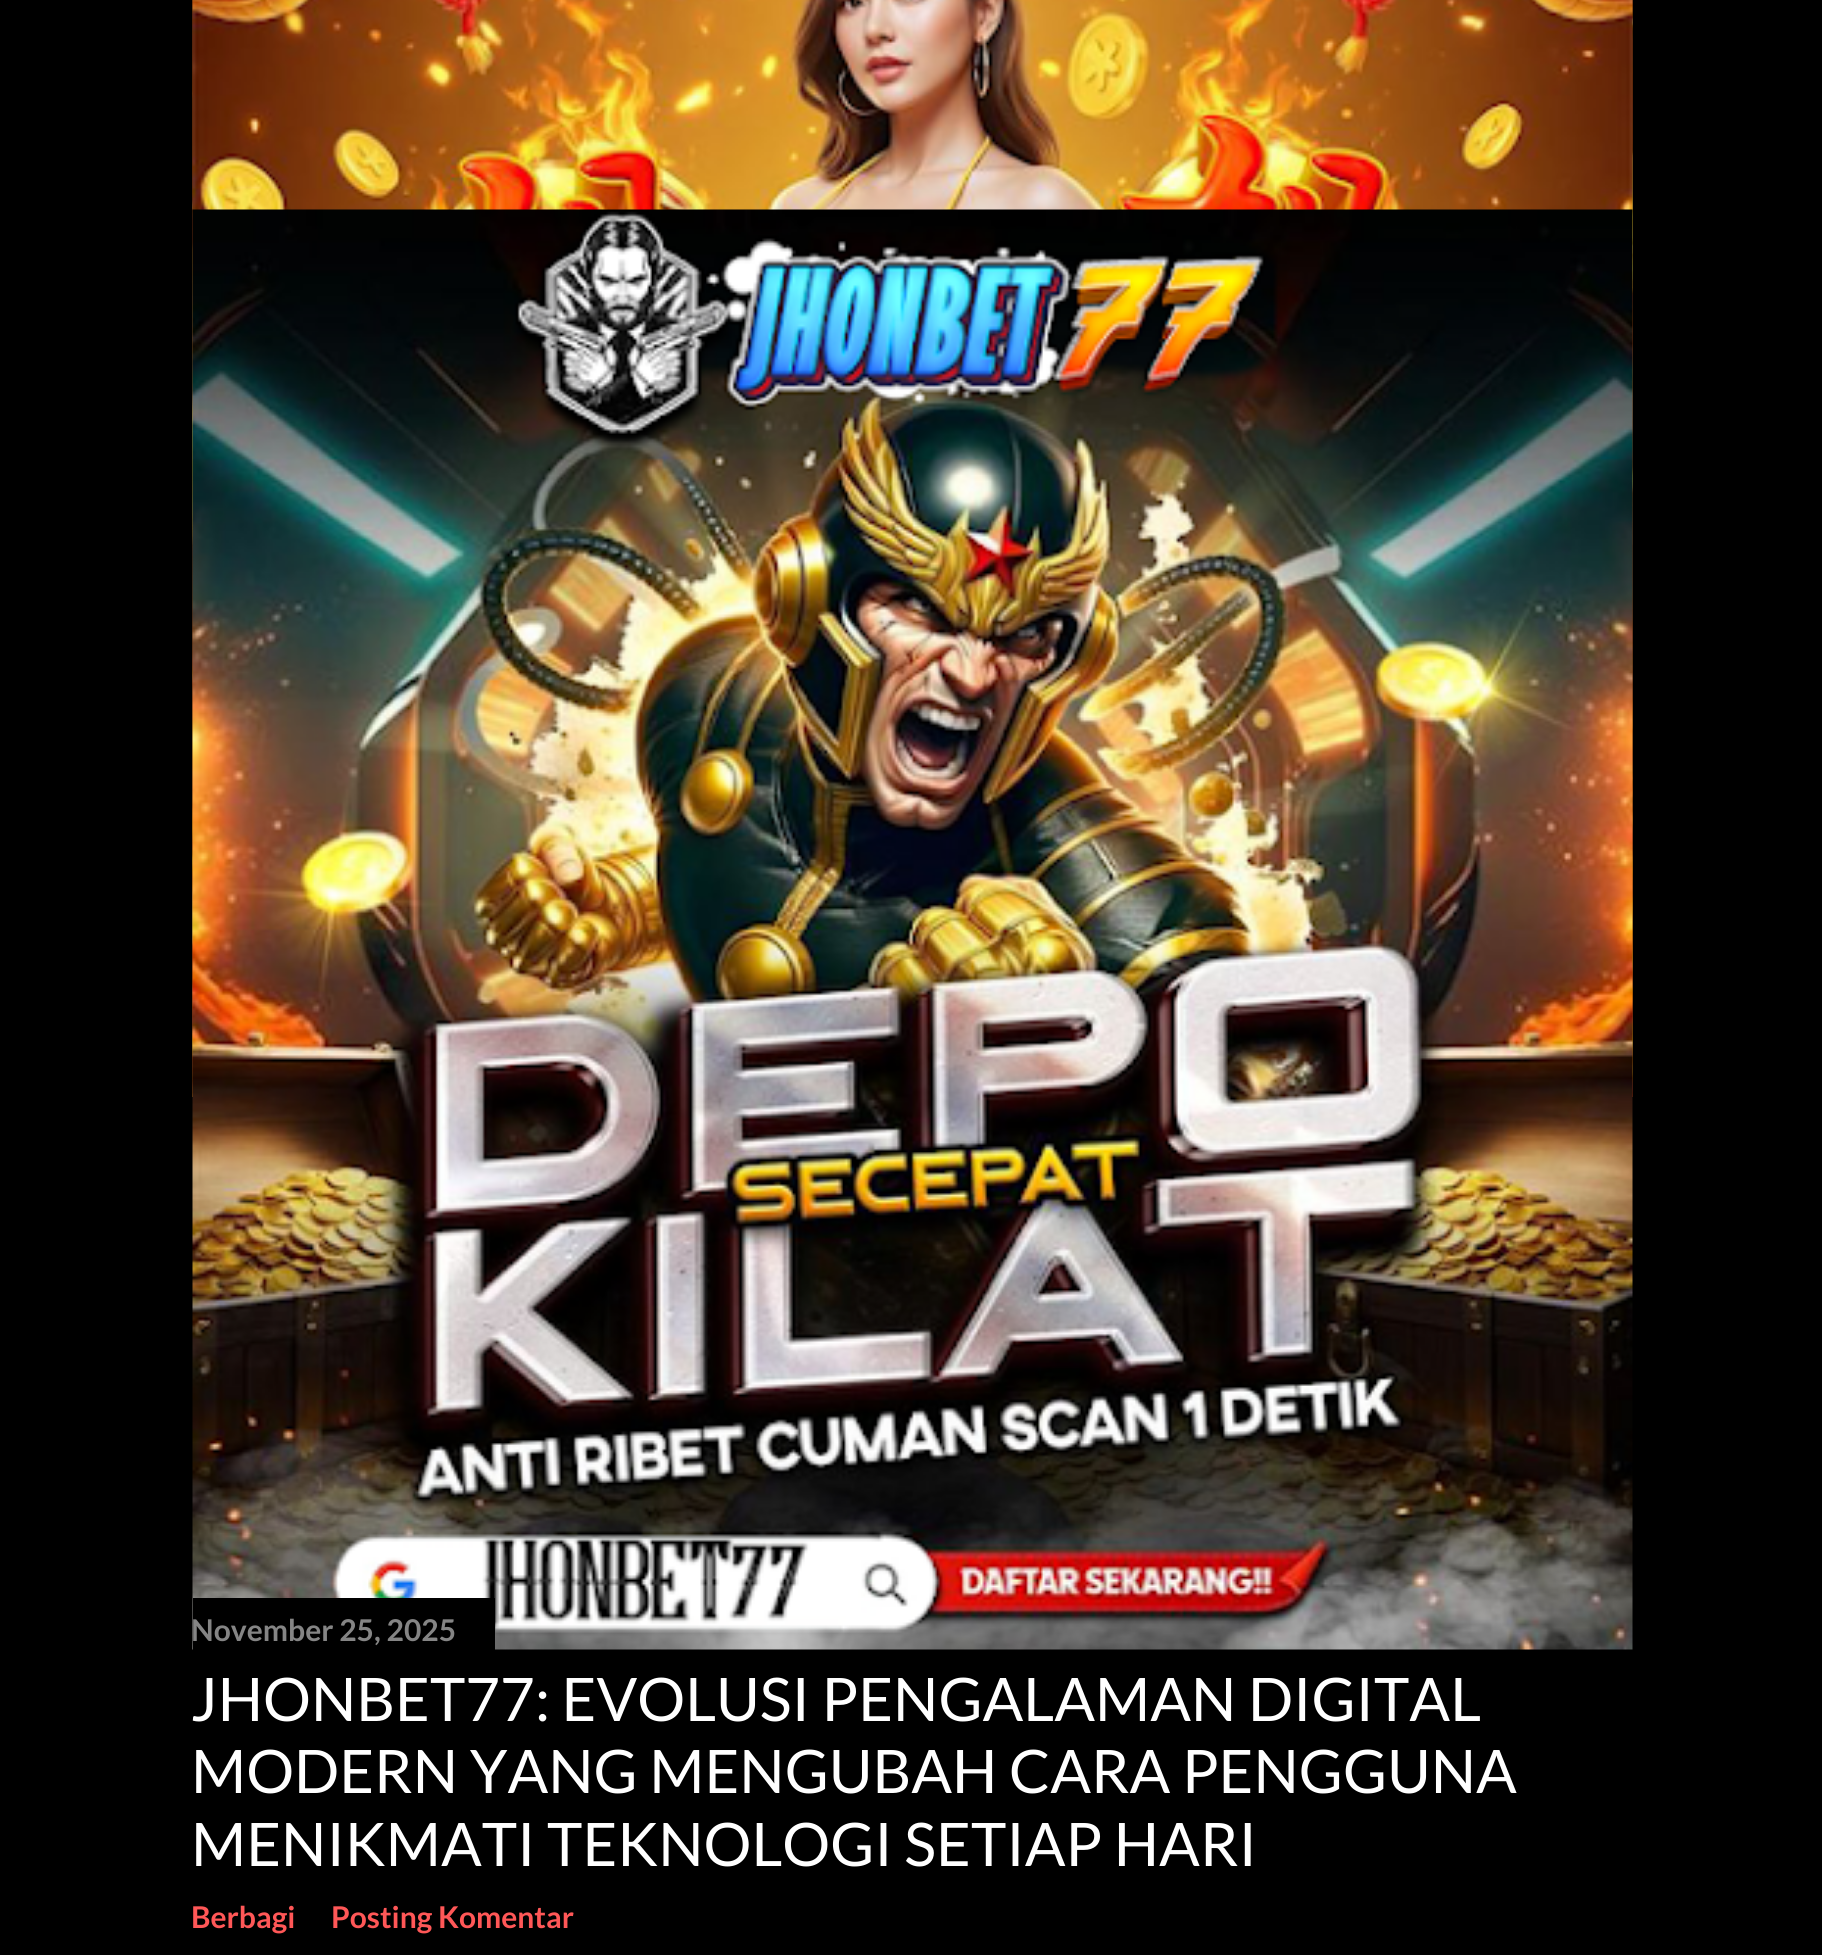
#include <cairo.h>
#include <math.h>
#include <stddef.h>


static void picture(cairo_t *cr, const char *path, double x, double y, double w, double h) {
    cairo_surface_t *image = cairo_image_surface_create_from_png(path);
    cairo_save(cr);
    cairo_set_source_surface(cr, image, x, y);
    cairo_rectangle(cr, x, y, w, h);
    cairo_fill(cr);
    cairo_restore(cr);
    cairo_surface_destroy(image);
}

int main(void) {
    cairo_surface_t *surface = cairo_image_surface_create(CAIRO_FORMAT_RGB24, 1822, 1955);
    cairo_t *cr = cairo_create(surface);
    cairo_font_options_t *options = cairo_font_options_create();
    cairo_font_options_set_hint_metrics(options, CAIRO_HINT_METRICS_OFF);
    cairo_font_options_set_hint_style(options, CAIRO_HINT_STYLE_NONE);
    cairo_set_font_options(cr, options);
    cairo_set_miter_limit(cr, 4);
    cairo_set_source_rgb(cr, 0, 0, 0);
    cairo_paint(cr);
    picture(cr, "img1.png", 192, 0, 1441, 545);
    picture(cr, "img2.png", 192, 0, 1441, 1097);
    picture(cr, "img3.png", 192, 209, 1441, 1441);
    cairo_set_source_rgb(cr, 0, 0, 0);
    cairo_rectangle(cr, 193, 1598, 302, 52);
    cairo_fill(cr);
    cairo_select_font_face(cr, "Lato", CAIRO_FONT_SLANT_NORMAL, CAIRO_FONT_WEIGHT_BOLD);
    cairo_set_font_size(cr, 30);
    cairo_set_source_rgb(cr, 0.522, 0.522, 0.522);
    cairo_move_to(cr, 191, 1641);
    cairo_show_text(cr, "November 25, 2025");
    cairo_select_font_face(cr, "Lato", CAIRO_FONT_SLANT_NORMAL, CAIRO_FONT_WEIGHT_NORMAL);
    cairo_set_font_size(cr, 60);
    cairo_set_source_rgb(cr, 1, 1, 1);
    cairo_move_to(cr, 191, 1721);
    cairo_show_text(cr, "JHONBET77: EVOLUSI PENGALAMAN DIGITAL");
    cairo_move_to(cr, 191, 1793);
    cairo_show_text(cr, "MODERN YANG MENGUBAH CARA PENGGUNA");
    cairo_move_to(cr, 191, 1866);
    cairo_show_text(cr, "MENIKMATI TEKNOLOGI SETIAP HARI");
    cairo_select_font_face(cr, "Lato", CAIRO_FONT_SLANT_NORMAL, CAIRO_FONT_WEIGHT_BOLD);
    cairo_set_font_size(cr, 30);
    cairo_set_source_rgb(cr, 1, 0.341, 0.341);
    cairo_move_to(cr, 191, 1928);
    cairo_show_text(cr, "Berbagi");
    cairo_move_to(cr, 331, 1928);
    cairo_show_text(cr, "Posting Komentar");
    cairo_surface_write_to_png(surface, "page.png");
    cairo_font_options_destroy(options);
    cairo_destroy(cr);
    cairo_surface_destroy(surface);
    return 0;
}
